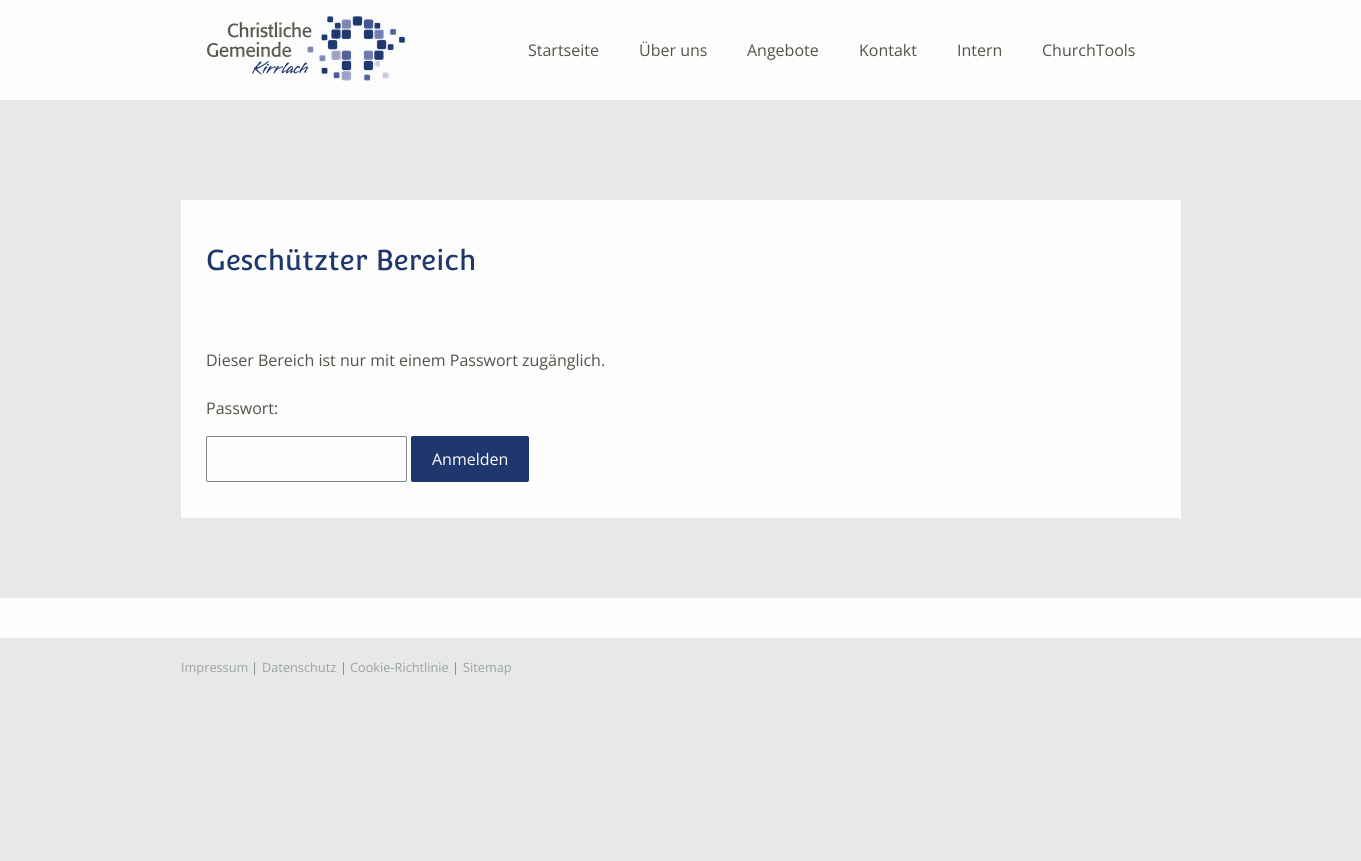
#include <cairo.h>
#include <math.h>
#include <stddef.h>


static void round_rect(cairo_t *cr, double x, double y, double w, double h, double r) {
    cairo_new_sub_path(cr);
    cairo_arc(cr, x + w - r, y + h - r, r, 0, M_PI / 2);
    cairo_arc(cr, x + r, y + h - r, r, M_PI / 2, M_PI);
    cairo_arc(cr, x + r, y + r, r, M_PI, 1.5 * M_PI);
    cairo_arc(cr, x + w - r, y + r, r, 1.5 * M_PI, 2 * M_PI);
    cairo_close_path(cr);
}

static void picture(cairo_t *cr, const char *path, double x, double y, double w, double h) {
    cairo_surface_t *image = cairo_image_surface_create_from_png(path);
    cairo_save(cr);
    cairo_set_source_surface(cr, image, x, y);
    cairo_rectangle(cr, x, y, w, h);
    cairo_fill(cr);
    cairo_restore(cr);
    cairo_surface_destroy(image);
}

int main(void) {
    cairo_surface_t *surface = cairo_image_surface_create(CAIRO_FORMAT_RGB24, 1361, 861);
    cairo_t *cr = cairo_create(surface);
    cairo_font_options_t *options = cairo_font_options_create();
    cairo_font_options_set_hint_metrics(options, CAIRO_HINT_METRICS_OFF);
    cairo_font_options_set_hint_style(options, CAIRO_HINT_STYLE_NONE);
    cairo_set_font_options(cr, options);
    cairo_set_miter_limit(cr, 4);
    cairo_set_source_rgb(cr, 0.91, 0.91, 0.91);
    cairo_paint(cr);
    cairo_set_source_rgb(cr, 0.992, 0.992, 0.992);
    cairo_rectangle(cr, 0, 0, 1361, 100);
    cairo_fill(cr);
    picture(cr, "img1.png", 206, 16, 199, 65);
    cairo_select_font_face(cr, "Open Sans", CAIRO_FONT_SLANT_NORMAL, CAIRO_FONT_WEIGHT_NORMAL);
    cairo_set_font_size(cr, 16);
    cairo_set_source_rgb(cr, 0.325, 0.325, 0.29);
    cairo_move_to(cr, 528, 56);
    cairo_show_text(cr, "Startseite");
    cairo_move_to(cr, 639, 56);
    cairo_show_text(cr, "Über uns");
    cairo_move_to(cr, 747, 56);
    cairo_show_text(cr, "Angebote");
    cairo_move_to(cr, 859, 56);
    cairo_show_text(cr, "Kontakt");
    cairo_move_to(cr, 957, 56);
    cairo_show_text(cr, "Intern");
    cairo_move_to(cr, 1042, 56);
    cairo_show_text(cr, "ChurchTools");
    cairo_set_source_rgb(cr, 0.992, 0.992, 0.992);
    cairo_rectangle(cr, 181, 200, 1000, 318);
    cairo_fill(cr);
    cairo_select_font_face(cr, "Convergence", CAIRO_FONT_SLANT_NORMAL, CAIRO_FONT_WEIGHT_NORMAL);
    cairo_set_font_size(cr, 28);
    cairo_set_source_rgb(cr, 0.118, 0.216, 0.424);
    cairo_move_to(cr, 206, 270);
    cairo_show_text(cr, "Geschützter Bereich");
    cairo_select_font_face(cr, "Open Sans", CAIRO_FONT_SLANT_NORMAL, CAIRO_FONT_WEIGHT_NORMAL);
    cairo_set_font_size(cr, 16);
    cairo_set_source_rgb(cr, 0.325, 0.325, 0.29);
    cairo_move_to(cr, 206, 366);
    cairo_show_text(cr, "Dieser Bereich ist nur mit einem Passwort zugänglich.");
    cairo_move_to(cr, 206, 414);
    cairo_show_text(cr, "Passwort:");
    round_rect(cr, 206.5, 436.5, 200, 45, 1.5);
    cairo_set_source_rgb(cr, 0.475, 0.518, 0.525);
    cairo_set_line_width(cr, 1);
    cairo_stroke(cr);
    cairo_set_source_rgb(cr, 0.118, 0.216, 0.424);
    round_rect(cr, 411.5, 436.5, 117, 45, 1.5);
    cairo_fill_preserve(cr);
    cairo_stroke(cr);
    cairo_set_source_rgb(cr, 1, 1, 1);
    cairo_move_to(cr, 432, 465);
    cairo_show_text(cr, "Anmelden");
    cairo_set_source_rgb(cr, 0.992, 0.992, 0.992);
    cairo_rectangle(cr, 0, 598, 1361, 40);
    cairo_fill(cr);
    cairo_set_font_size(cr, 12.75);
    cairo_set_source_rgb(cr, 0.604, 0.635, 0.639);
    cairo_move_to(cr, 181, 672);
    cairo_show_text(cr, "Impressum");
    cairo_set_source_rgb(cr, 0.475, 0.518, 0.525);
    cairo_move_to(cr, 251, 672);
    cairo_show_text(cr, "|");
    cairo_set_source_rgb(cr, 0.604, 0.635, 0.639);
    cairo_move_to(cr, 262, 672);
    cairo_show_text(cr, "Datenschutz");
    cairo_set_source_rgb(cr, 0.475, 0.518, 0.525);
    cairo_move_to(cr, 340, 672);
    cairo_show_text(cr, "|");
    cairo_set_source_rgb(cr, 0.604, 0.635, 0.639);
    cairo_move_to(cr, 350, 672);
    cairo_show_text(cr, "Cookie-Richtlinie");
    cairo_set_source_rgb(cr, 0.475, 0.518, 0.525);
    cairo_move_to(cr, 452, 672);
    cairo_show_text(cr, "|");
    cairo_set_source_rgb(cr, 0.604, 0.635, 0.639);
    cairo_move_to(cr, 463, 672);
    cairo_show_text(cr, "Sitemap");
    cairo_surface_write_to_png(surface, "page.png");
    cairo_font_options_destroy(options);
    cairo_destroy(cr);
    cairo_surface_destroy(surface);
    return 0;
}
